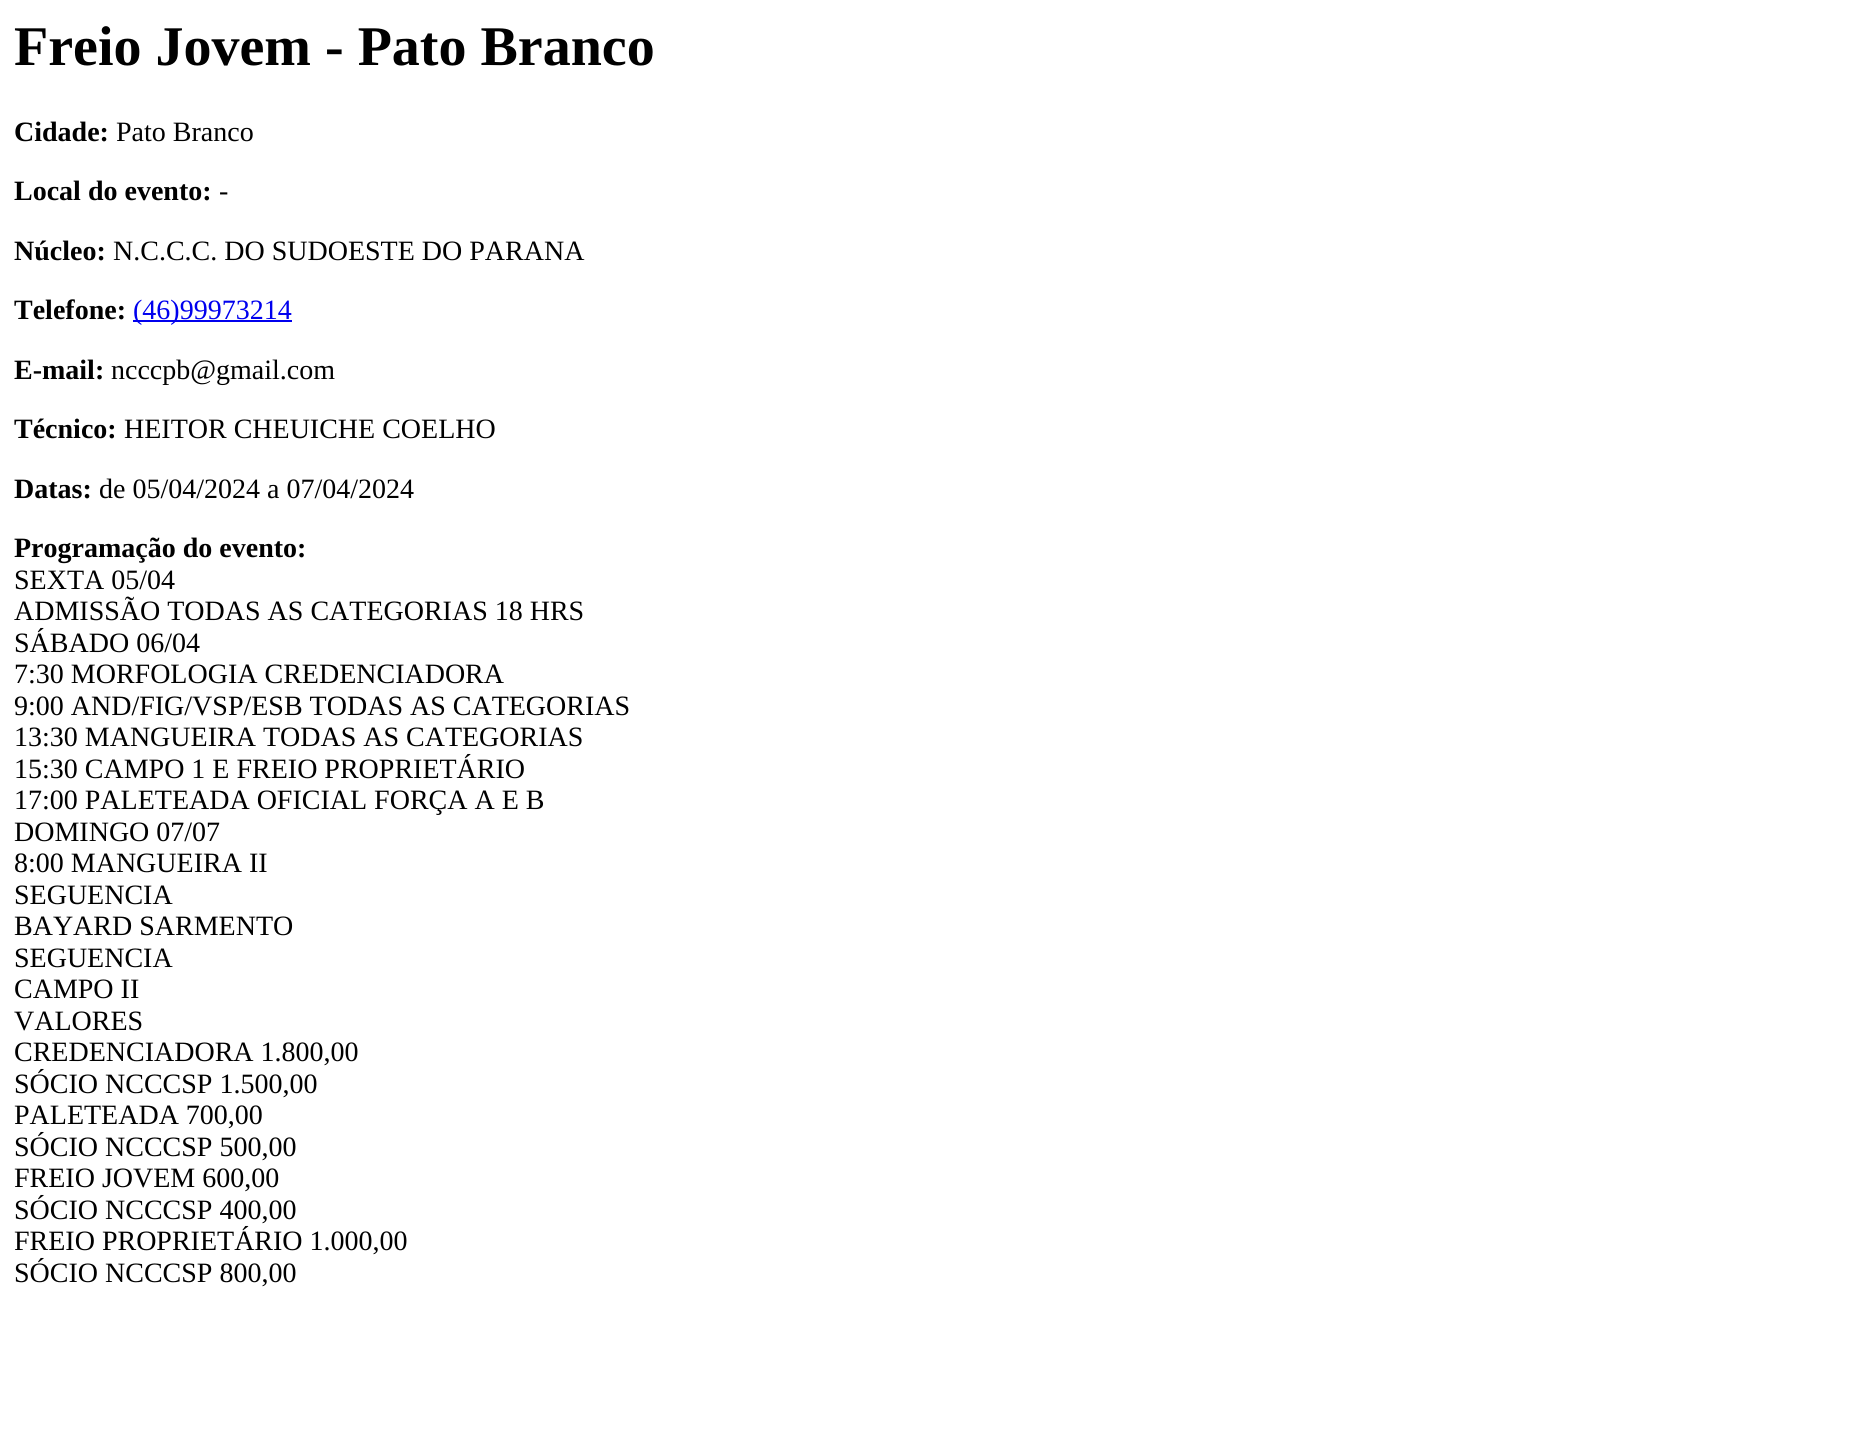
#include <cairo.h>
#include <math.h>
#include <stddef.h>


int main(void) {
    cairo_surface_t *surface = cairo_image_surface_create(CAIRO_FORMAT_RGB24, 1866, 1453);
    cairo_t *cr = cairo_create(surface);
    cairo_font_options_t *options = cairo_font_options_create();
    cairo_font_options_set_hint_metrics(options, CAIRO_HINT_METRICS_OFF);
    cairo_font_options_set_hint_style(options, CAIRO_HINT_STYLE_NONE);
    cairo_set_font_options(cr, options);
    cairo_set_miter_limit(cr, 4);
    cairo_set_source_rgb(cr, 1, 1, 1);
    cairo_paint(cr);
    cairo_select_font_face(cr, "Liberation Serif", CAIRO_FONT_SLANT_NORMAL, CAIRO_FONT_WEIGHT_BOLD);
    cairo_set_font_size(cr, 56);
    cairo_set_source_rgb(cr, 0, 0, 0);
    cairo_move_to(cr, 14, 65);
    cairo_show_text(cr, "Freio Jovem - Pato Branco");
    cairo_set_font_size(cr, 28);
    cairo_move_to(cr, 14, 141);
    cairo_show_text(cr, "Cidade:");
    cairo_select_font_face(cr, "Liberation Serif", CAIRO_FONT_SLANT_NORMAL, CAIRO_FONT_WEIGHT_NORMAL);
    cairo_move_to(cr, 116, 141);
    cairo_show_text(cr, "Pato Branco");
    cairo_select_font_face(cr, "Liberation Serif", CAIRO_FONT_SLANT_NORMAL, CAIRO_FONT_WEIGHT_BOLD);
    cairo_move_to(cr, 14, 200);
    cairo_show_text(cr, "Local do evento:");
    cairo_select_font_face(cr, "Liberation Serif", CAIRO_FONT_SLANT_NORMAL, CAIRO_FONT_WEIGHT_NORMAL);
    cairo_move_to(cr, 219, 200);
    cairo_show_text(cr, "-");
    cairo_select_font_face(cr, "Liberation Serif", CAIRO_FONT_SLANT_NORMAL, CAIRO_FONT_WEIGHT_BOLD);
    cairo_move_to(cr, 14, 260);
    cairo_show_text(cr, "Núcleo:");
    cairo_select_font_face(cr, "Liberation Serif", CAIRO_FONT_SLANT_NORMAL, CAIRO_FONT_WEIGHT_NORMAL);
    cairo_move_to(cr, 113, 260);
    cairo_show_text(cr, "N.C.C.C. DO SUDOESTE DO PARANA");
    cairo_select_font_face(cr, "Liberation Serif", CAIRO_FONT_SLANT_NORMAL, CAIRO_FONT_WEIGHT_BOLD);
    cairo_move_to(cr, 14, 319);
    cairo_show_text(cr, "Telefone:");
    cairo_set_source_rgb(cr, 0, 0, 0.933);
    cairo_rectangle(cr, 133, 320, 159, 2);
    cairo_fill(cr);
    cairo_select_font_face(cr, "Liberation Serif", CAIRO_FONT_SLANT_NORMAL, CAIRO_FONT_WEIGHT_NORMAL);
    cairo_move_to(cr, 133, 319);
    cairo_show_text(cr, "(46)99973214");
    cairo_select_font_face(cr, "Liberation Serif", CAIRO_FONT_SLANT_NORMAL, CAIRO_FONT_WEIGHT_BOLD);
    cairo_set_source_rgb(cr, 0, 0, 0);
    cairo_move_to(cr, 14, 379);
    cairo_show_text(cr, "E-mail:");
    cairo_select_font_face(cr, "Liberation Serif", CAIRO_FONT_SLANT_NORMAL, CAIRO_FONT_WEIGHT_NORMAL);
    cairo_move_to(cr, 111, 379);
    cairo_show_text(cr, "ncccpb@gmail.com");
    cairo_select_font_face(cr, "Liberation Serif", CAIRO_FONT_SLANT_NORMAL, CAIRO_FONT_WEIGHT_BOLD);
    cairo_move_to(cr, 14, 438);
    cairo_show_text(cr, "Técnico:");
    cairo_select_font_face(cr, "Liberation Serif", CAIRO_FONT_SLANT_NORMAL, CAIRO_FONT_WEIGHT_NORMAL);
    cairo_move_to(cr, 124, 438);
    cairo_show_text(cr, "HEITOR CHEUICHE COELHO");
    cairo_select_font_face(cr, "Liberation Serif", CAIRO_FONT_SLANT_NORMAL, CAIRO_FONT_WEIGHT_BOLD);
    cairo_move_to(cr, 14, 498);
    cairo_show_text(cr, "Datas:");
    cairo_select_font_face(cr, "Liberation Serif", CAIRO_FONT_SLANT_NORMAL, CAIRO_FONT_WEIGHT_NORMAL);
    cairo_move_to(cr, 99, 498);
    cairo_show_text(cr, "de 05/04/2024 a 07/04/2024");
    cairo_select_font_face(cr, "Liberation Serif", CAIRO_FONT_SLANT_NORMAL, CAIRO_FONT_WEIGHT_BOLD);
    cairo_move_to(cr, 14, 557);
    cairo_show_text(cr, "Programação do evento:");
    cairo_select_font_face(cr, "Liberation Serif", CAIRO_FONT_SLANT_NORMAL, CAIRO_FONT_WEIGHT_NORMAL);
    cairo_move_to(cr, 14, 589);
    cairo_show_text(cr, "SEXTA 05/04");
    cairo_move_to(cr, 14, 620);
    cairo_show_text(cr, "ADMISSÃO TODAS AS CATEGORIAS 18 HRS");
    cairo_move_to(cr, 14, 652);
    cairo_show_text(cr, "SÁBADO 06/04");
    cairo_move_to(cr, 14, 683);
    cairo_show_text(cr, "7:30 MORFOLOGIA CREDENCIADORA");
    cairo_move_to(cr, 14, 715);
    cairo_show_text(cr, "9:00 AND/FIG/VSP/ESB TODAS AS CATEGORIAS");
    cairo_move_to(cr, 14, 746);
    cairo_show_text(cr, "13:30 MANGUEIRA TODAS AS CATEGORIAS");
    cairo_move_to(cr, 14, 778);
    cairo_show_text(cr, "15:30 CAMPO 1 E FREIO PROPRIETÁRIO");
    cairo_move_to(cr, 14, 809);
    cairo_show_text(cr, "17:00 PALETEADA OFICIAL FORÇA A E B");
    cairo_move_to(cr, 14, 841);
    cairo_show_text(cr, "DOMINGO 07/07");
    cairo_move_to(cr, 14, 872);
    cairo_show_text(cr, "8:00 MANGUEIRA II");
    cairo_move_to(cr, 14, 904);
    cairo_show_text(cr, "SEGUENCIA");
    cairo_move_to(cr, 14, 935);
    cairo_show_text(cr, "BAYARD SARMENTO");
    cairo_move_to(cr, 14, 967);
    cairo_show_text(cr, "SEGUENCIA");
    cairo_move_to(cr, 14, 998);
    cairo_show_text(cr, "CAMPO II");
    cairo_move_to(cr, 14, 1030);
    cairo_show_text(cr, "VALORES");
    cairo_move_to(cr, 14, 1061);
    cairo_show_text(cr, "CREDENCIADORA 1.800,00");
    cairo_move_to(cr, 14, 1093);
    cairo_show_text(cr, "SÓCIO NCCCSP 1.500,00");
    cairo_move_to(cr, 14, 1124);
    cairo_show_text(cr, "PALETEADA 700,00");
    cairo_move_to(cr, 14, 1156);
    cairo_show_text(cr, "SÓCIO NCCCSP 500,00");
    cairo_move_to(cr, 14, 1187);
    cairo_show_text(cr, "FREIO JOVEM 600,00");
    cairo_move_to(cr, 14, 1219);
    cairo_show_text(cr, "SÓCIO NCCCSP 400,00");
    cairo_move_to(cr, 14, 1250);
    cairo_show_text(cr, "FREIO PROPRIETÁRIO 1.000,00");
    cairo_move_to(cr, 14, 1282);
    cairo_show_text(cr, "SÓCIO NCCCSP 800,00");
    cairo_surface_write_to_png(surface, "page.png");
    cairo_font_options_destroy(options);
    cairo_destroy(cr);
    cairo_surface_destroy(surface);
    return 0;
}
